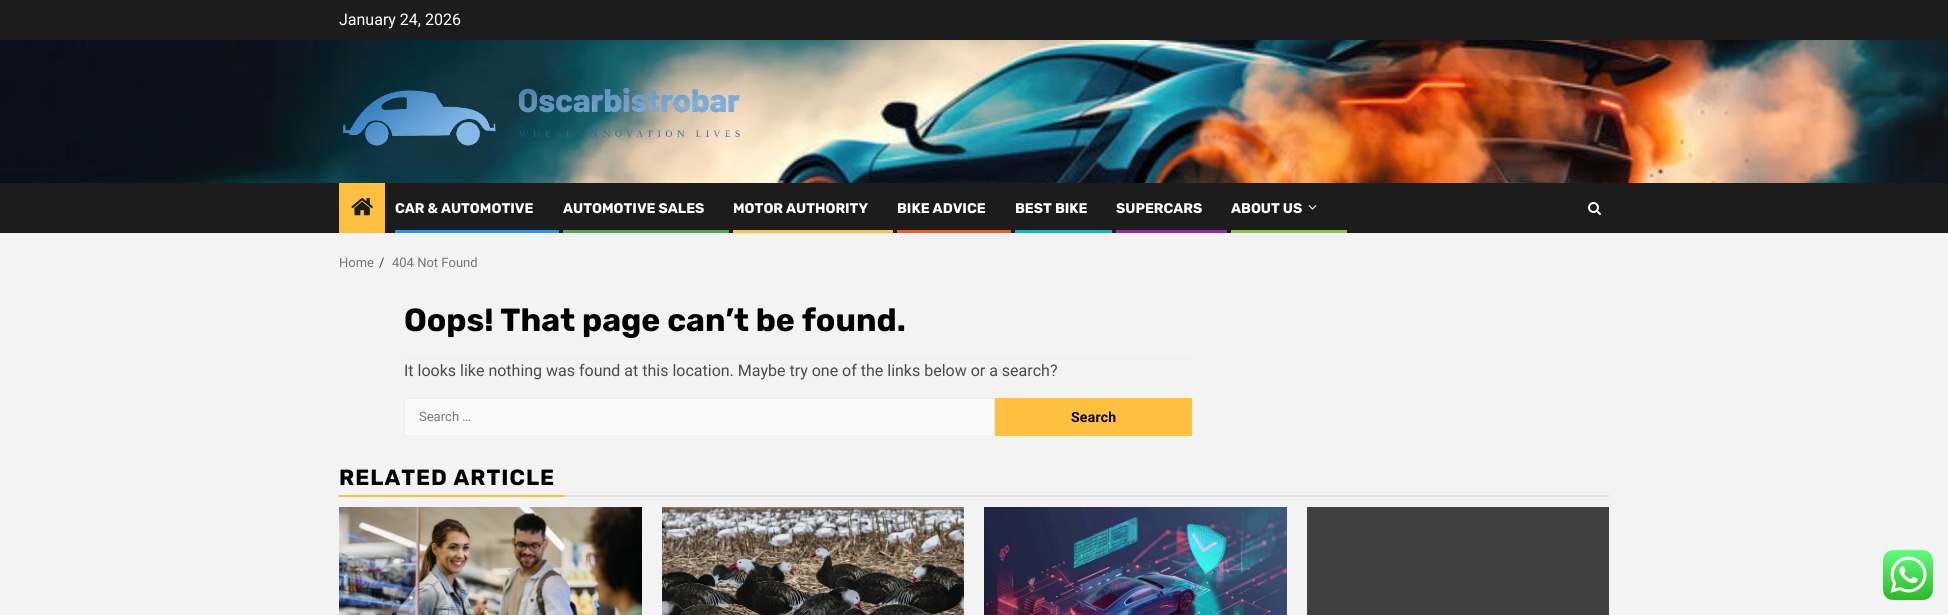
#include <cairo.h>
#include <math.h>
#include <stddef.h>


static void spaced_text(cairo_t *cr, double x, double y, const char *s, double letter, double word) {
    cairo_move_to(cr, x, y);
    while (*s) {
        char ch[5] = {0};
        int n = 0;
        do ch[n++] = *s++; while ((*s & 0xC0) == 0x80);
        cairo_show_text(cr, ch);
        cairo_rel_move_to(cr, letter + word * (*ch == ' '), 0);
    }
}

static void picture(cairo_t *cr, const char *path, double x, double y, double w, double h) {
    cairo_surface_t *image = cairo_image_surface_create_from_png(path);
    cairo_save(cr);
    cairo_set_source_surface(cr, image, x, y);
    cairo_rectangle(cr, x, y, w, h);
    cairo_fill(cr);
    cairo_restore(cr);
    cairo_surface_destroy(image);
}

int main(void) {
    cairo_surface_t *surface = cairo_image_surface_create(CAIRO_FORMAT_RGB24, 1948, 615);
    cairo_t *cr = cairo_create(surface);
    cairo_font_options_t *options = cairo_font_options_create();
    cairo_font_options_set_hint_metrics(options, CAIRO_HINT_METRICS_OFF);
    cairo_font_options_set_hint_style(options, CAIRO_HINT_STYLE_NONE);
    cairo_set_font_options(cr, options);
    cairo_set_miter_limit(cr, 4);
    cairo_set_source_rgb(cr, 0.953, 0.953, 0.953);
    cairo_paint(cr);
    cairo_set_source_rgb(cr, 0.11, 0.11, 0.11);
    cairo_rectangle(cr, 0, 0, 1948, 40);
    cairo_fill(cr);
    cairo_select_font_face(cr, "Roboto", CAIRO_FONT_SLANT_NORMAL, CAIRO_FONT_WEIGHT_NORMAL);
    cairo_set_font_size(cr, 16);
    cairo_set_source_rgb(cr, 1, 1, 1);
    cairo_move_to(cr, 339, 25);
    cairo_show_text(cr, "January 24, 2026");
    picture(cr, "img1.png", 0, 40, 1948, 143);
    picture(cr, "img2.png", 343, 87, 397, 59);
    cairo_set_source_rgb(cr, 0.11, 0.11, 0.11);
    cairo_rectangle(cr, 0, 183, 1948, 50);
    cairo_fill(cr);
    cairo_set_source_rgb(cr, 1, 0.749, 0.247);
    cairo_rectangle(cr, 339, 183, 46, 50);
    cairo_fill(cr);
    picture(cr, "img3.png", 351, 198, 22, 18);
    cairo_select_font_face(cr, "Rubik", CAIRO_FONT_SLANT_NORMAL, CAIRO_FONT_WEIGHT_BOLD);
    cairo_set_font_size(cr, 14);
    cairo_set_source_rgb(cr, 1, 1, 1);
    cairo_move_to(cr, 395, 213);
    cairo_show_text(cr, "CAR & AUTOMOTIVE");
    cairo_set_source_rgb(cr, 0.129, 0.588, 0.953);
    cairo_rectangle(cr, 395, 230, 164, 3);
    cairo_fill(cr);
    cairo_set_source_rgb(cr, 1, 1, 1);
    cairo_move_to(cr, 563, 213);
    cairo_show_text(cr, "AUTOMOTIVE SALES");
    cairo_set_source_rgb(cr, 0.298, 0.686, 0.314);
    cairo_rectangle(cr, 563, 230, 166, 3);
    cairo_fill(cr);
    cairo_set_source_rgb(cr, 1, 1, 1);
    cairo_move_to(cr, 733, 213);
    cairo_show_text(cr, "MOTOR AUTHORITY");
    cairo_set_source_rgb(cr, 1, 0.749, 0.247);
    cairo_rectangle(cr, 733, 230, 160, 3);
    cairo_fill(cr);
    cairo_set_source_rgb(cr, 1, 1, 1);
    cairo_move_to(cr, 897, 213);
    cairo_show_text(cr, "BIKE ADVICE");
    cairo_set_source_rgb(cr, 1, 0.341, 0.133);
    cairo_rectangle(cr, 897, 230, 114, 3);
    cairo_fill(cr);
    cairo_set_source_rgb(cr, 1, 1, 1);
    cairo_move_to(cr, 1015, 213);
    cairo_show_text(cr, "BEST BIKE");
    cairo_set_source_rgb(cr, 0, 0.737, 0.831);
    cairo_rectangle(cr, 1015, 230, 97, 3);
    cairo_fill(cr);
    cairo_set_source_rgb(cr, 1, 1, 1);
    cairo_move_to(cr, 1116, 213);
    cairo_show_text(cr, "SUPERCARS");
    cairo_set_source_rgb(cr, 0.612, 0.153, 0.69);
    cairo_rectangle(cr, 1116, 230, 111, 3);
    cairo_fill(cr);
    cairo_set_source_rgb(cr, 1, 1, 1);
    cairo_move_to(cr, 1231, 213);
    cairo_show_text(cr, "ABOUT US");
    picture(cr, "img4.png", 1308, 205, 9, 5);
    cairo_set_source_rgb(cr, 0.545, 0.765, 0.29);
    cairo_rectangle(cr, 1231, 230, 116, 3);
    cairo_fill(cr);
    picture(cr, "img5.png", 1588, 202, 13, 13);
    cairo_select_font_face(cr, "Roboto", CAIRO_FONT_SLANT_NORMAL, CAIRO_FONT_WEIGHT_NORMAL);
    cairo_set_font_size(cr, 13);
    cairo_set_source_rgb(cr, 0.459, 0.459, 0.459);
    cairo_move_to(cr, 339, 267);
    cairo_show_text(cr, "Home");
    cairo_set_source_rgb(cr, 0.224, 0.243, 0.275);
    cairo_move_to(cr, 379, 267);
    cairo_show_text(cr, "/");
    cairo_set_source_rgb(cr, 0.459, 0.459, 0.459);
    cairo_move_to(cr, 392, 267);
    cairo_show_text(cr, "404 Not Found");
    cairo_set_source_rgb(cr, 0.933, 0.933, 0.933);
    cairo_rectangle(cr, 404, 358, 788, 1);
    cairo_fill(cr);
    cairo_select_font_face(cr, "Rubik", CAIRO_FONT_SLANT_NORMAL, CAIRO_FONT_WEIGHT_BOLD);
    cairo_set_font_size(cr, 32);
    cairo_set_source_rgb(cr, 0, 0, 0);
    cairo_move_to(cr, 404, 331);
    cairo_show_text(cr, "Oops! That page can’t be found.");
    cairo_select_font_face(cr, "Roboto", CAIRO_FONT_SLANT_NORMAL, CAIRO_FONT_WEIGHT_NORMAL);
    cairo_set_font_size(cr, 16);
    cairo_set_source_rgb(cr, 0.29, 0.29, 0.29);
    cairo_move_to(cr, 404, 376);
    cairo_show_text(cr, "It looks like nothing was found at this location. Maybe try one of the links below or a search?");
    cairo_set_source_rgb(cr, 0.98, 0.98, 0.98);
    cairo_rectangle(cr, 404.5, 398.5, 590, 37);
    cairo_fill_preserve(cr);
    cairo_set_source_rgb(cr, 0.933, 0.933, 0.933);
    cairo_set_line_width(cr, 1);
    cairo_stroke(cr);
    cairo_set_font_size(cr, 13);
    cairo_set_source_rgb(cr, 0.459, 0.459, 0.459);
    cairo_move_to(cr, 419, 421);
    cairo_show_text(cr, "Search …");
    cairo_set_source_rgb(cr, 1, 0.749, 0.247);
    cairo_rectangle(cr, 995, 398, 197, 38);
    cairo_fill(cr);
    cairo_select_font_face(cr, "Roboto", CAIRO_FONT_SLANT_NORMAL, CAIRO_FONT_WEIGHT_BOLD);
    cairo_set_font_size(cr, 14);
    cairo_set_source_rgb(cr, 0, 0, 0);
    spaced_text(cr, 1071, 422, "Search", 0.25, 0);
    cairo_set_source_rgb(cr, 1, 0.749, 0.247);
    cairo_rectangle(cr, 339, 495, 226, 2);
    cairo_fill(cr);
    cairo_select_font_face(cr, "Rubik", CAIRO_FONT_SLANT_NORMAL, CAIRO_FONT_WEIGHT_BOLD);
    cairo_set_font_size(cr, 22);
    cairo_set_source_rgb(cr, 0, 0, 0);
    spaced_text(cr, 339, 485, "RELATED ARTICLE", 1, 0);
    cairo_set_source_rgb(cr, 0.871, 0.871, 0.871);
    cairo_rectangle(cr, 565, 495, 1044, 2);
    cairo_fill(cr);
    picture(cr, "img6.png", 339, 507, 303, 108);
    picture(cr, "img7.png", 662, 507, 302, 108);
    picture(cr, "img8.png", 984, 507, 303, 108);
    cairo_set_source_rgb(cr, 0.251, 0.251, 0.251);
    cairo_rectangle(cr, 1307, 507, 302, 108);
    cairo_fill(cr);
    picture(cr, "img9.png", 1883, 550, 50, 50);
    cairo_surface_write_to_png(surface, "page.png");
    cairo_font_options_destroy(options);
    cairo_destroy(cr);
    cairo_surface_destroy(surface);
    return 0;
}
